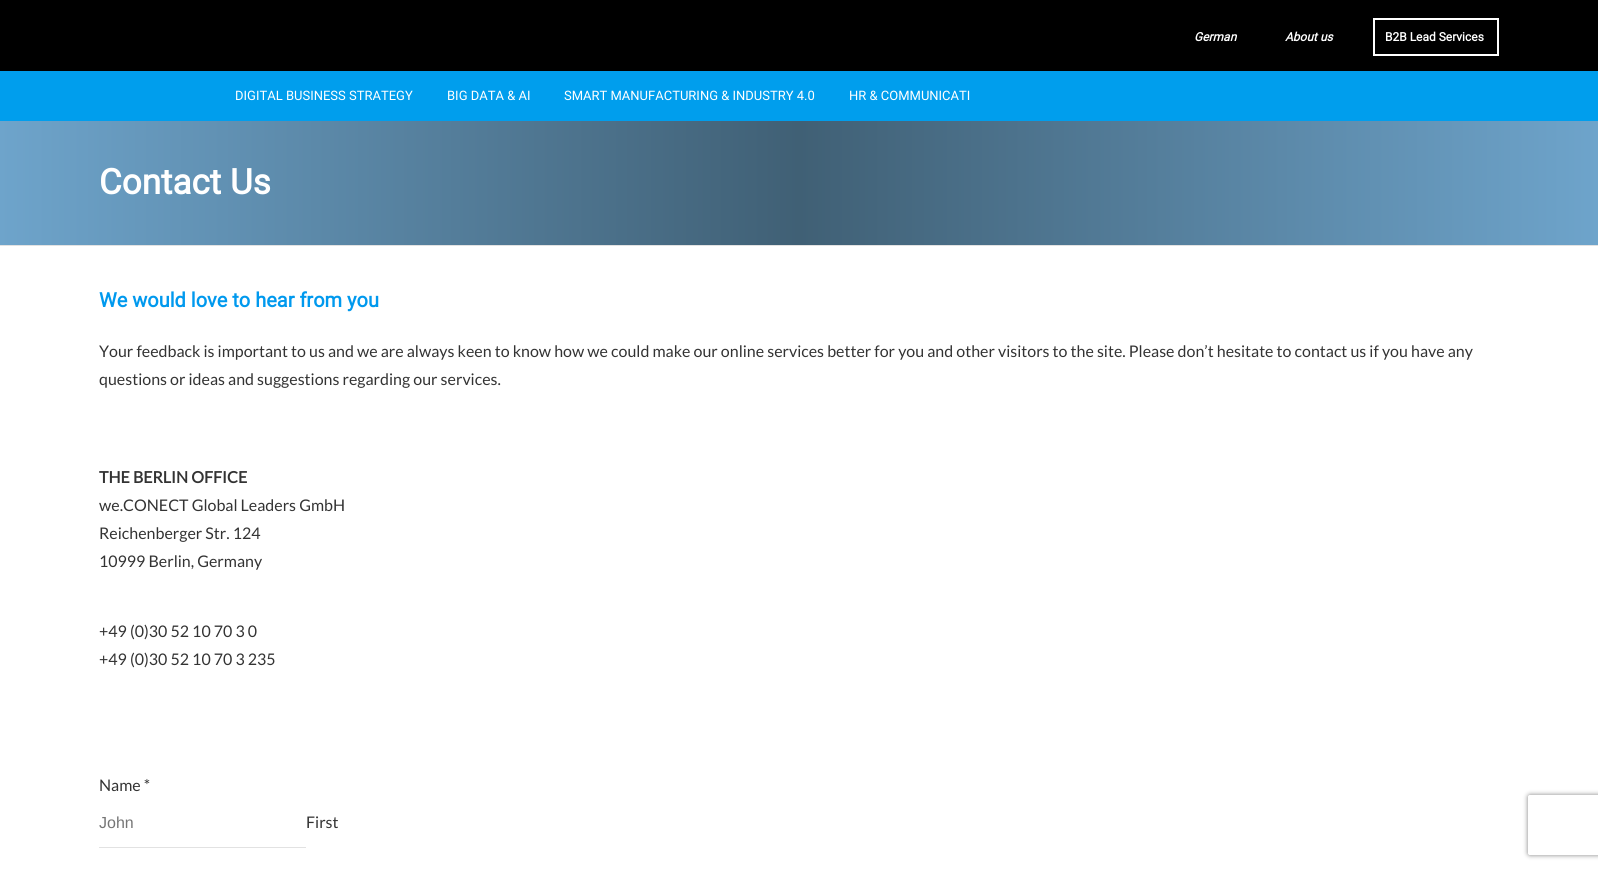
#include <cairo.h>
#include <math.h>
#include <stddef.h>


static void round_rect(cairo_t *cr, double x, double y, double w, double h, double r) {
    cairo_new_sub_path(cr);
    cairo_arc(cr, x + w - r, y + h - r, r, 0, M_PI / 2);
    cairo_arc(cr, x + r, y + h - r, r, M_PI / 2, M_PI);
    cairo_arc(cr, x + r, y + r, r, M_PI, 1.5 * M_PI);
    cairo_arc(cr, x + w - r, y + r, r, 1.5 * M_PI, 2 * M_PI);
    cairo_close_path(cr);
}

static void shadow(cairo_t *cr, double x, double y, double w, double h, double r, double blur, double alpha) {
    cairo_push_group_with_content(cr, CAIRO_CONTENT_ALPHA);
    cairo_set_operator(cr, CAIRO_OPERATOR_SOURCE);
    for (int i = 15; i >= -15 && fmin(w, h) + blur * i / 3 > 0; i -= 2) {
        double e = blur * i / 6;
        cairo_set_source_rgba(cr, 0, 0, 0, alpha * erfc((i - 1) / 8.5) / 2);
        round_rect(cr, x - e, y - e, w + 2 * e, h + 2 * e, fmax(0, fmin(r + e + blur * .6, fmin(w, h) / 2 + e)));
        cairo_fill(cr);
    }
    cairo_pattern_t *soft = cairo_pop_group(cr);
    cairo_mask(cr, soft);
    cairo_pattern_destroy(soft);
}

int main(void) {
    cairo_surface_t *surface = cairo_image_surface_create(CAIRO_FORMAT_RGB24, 1598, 869);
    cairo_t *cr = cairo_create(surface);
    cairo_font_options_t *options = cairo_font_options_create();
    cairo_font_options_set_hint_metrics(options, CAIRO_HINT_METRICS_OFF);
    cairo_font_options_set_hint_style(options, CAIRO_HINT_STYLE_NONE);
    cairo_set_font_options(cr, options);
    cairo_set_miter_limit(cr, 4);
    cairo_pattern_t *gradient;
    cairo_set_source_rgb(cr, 1, 1, 1);
    cairo_paint(cr);
    cairo_set_source_rgb(cr, 0, 0, 0);
    cairo_rectangle(cr, 0, 0, 1598, 71);
    cairo_fill(cr);
    cairo_select_font_face(cr, "Roboto", CAIRO_FONT_SLANT_ITALIC, CAIRO_FONT_WEIGHT_BOLD);
    cairo_set_font_size(cr, 12);
    cairo_set_source_rgb(cr, 1, 1, 1);
    cairo_move_to(cr, 1194, 41);
    cairo_show_text(cr, "German");
    cairo_move_to(cr, 1285, 41);
    cairo_show_text(cr, "About us");
    cairo_rectangle(cr, 1374, 19, 124, 36);
    cairo_stroke(cr);
    cairo_select_font_face(cr, "Roboto", CAIRO_FONT_SLANT_NORMAL, CAIRO_FONT_WEIGHT_BOLD);
    cairo_move_to(cr, 1385, 41);
    cairo_show_text(cr, "B2B Lead Services");
    cairo_set_source_rgb(cr, 0, 0.62, 0.929);
    cairo_rectangle(cr, 0, 71, 1598, 50);
    cairo_fill(cr);
    cairo_select_font_face(cr, "Roboto", CAIRO_FONT_SLANT_NORMAL, CAIRO_FONT_WEIGHT_NORMAL);
    cairo_set_font_size(cr, 13);
    cairo_set_source_rgb(cr, 1, 1, 1);
    cairo_move_to(cr, 235, 100);
    cairo_show_text(cr, "DIGITAL BUSINESS STRATEGY");
    cairo_move_to(cr, 447, 100);
    cairo_show_text(cr, "BIG DATA & AI");
    cairo_move_to(cr, 564, 100);
    cairo_show_text(cr, "SMART MANUFACTURING & INDUSTRY 4.0");
    cairo_move_to(cr, 849, 100);
    cairo_show_text(cr, "HR & COMMUNICATI");
    gradient = cairo_pattern_create_linear(0, 183, 1598, 183);
    cairo_pattern_add_color_stop_rgba(gradient, 0, 0.431, 0.643, 0.796, 1);
    cairo_pattern_add_color_stop_rgba(gradient, 0.5, 0.251, 0.376, 0.459, 1);
    cairo_pattern_add_color_stop_rgba(gradient, 1, 0.431, 0.643, 0.796, 1);
    cairo_set_source(cr, gradient);
    cairo_pattern_destroy(gradient);
    cairo_rectangle(cr, 0, 121, 1598, 124);
    cairo_fill(cr);
    cairo_set_source_rgb(cr, 0.886, 0.886, 0.886);
    cairo_rectangle(cr, 0, 245, 1598, 1);
    cairo_fill(cr);
    cairo_select_font_face(cr, "Roboto", CAIRO_FONT_SLANT_NORMAL, CAIRO_FONT_WEIGHT_BOLD);
    cairo_set_font_size(cr, 35);
    cairo_set_source_rgb(cr, 1, 1, 1);
    cairo_move_to(cr, 99, 194);
    cairo_show_text(cr, "Contact Us");
    cairo_set_font_size(cr, 20);
    cairo_set_source_rgb(cr, 0, 0.6, 0.933);
    cairo_move_to(cr, 99, 307);
    cairo_show_text(cr, "We would love to hear from you");
    cairo_select_font_face(cr, "Lato", CAIRO_FONT_SLANT_NORMAL, CAIRO_FONT_WEIGHT_NORMAL);
    cairo_set_font_size(cr, 16);
    cairo_set_source_rgb(cr, 0.2, 0.2, 0.2);
    cairo_move_to(cr, 99, 357);
    cairo_show_text(cr, "Your feedback is important to us and we are always keen to know how we could make our online services better for you and other visitors to the site. Please don’t hesitate to contact us if you have any");
    cairo_move_to(cr, 99, 385);
    cairo_show_text(cr, "questions or ideas and suggestions regarding our services.");
    cairo_select_font_face(cr, "Lato", CAIRO_FONT_SLANT_NORMAL, CAIRO_FONT_WEIGHT_BOLD);
    cairo_move_to(cr, 99, 483);
    cairo_show_text(cr, "THE BERLIN OFFICE");
    cairo_select_font_face(cr, "Lato", CAIRO_FONT_SLANT_NORMAL, CAIRO_FONT_WEIGHT_NORMAL);
    cairo_move_to(cr, 99, 511);
    cairo_show_text(cr, "we.CONECT Global Leaders GmbH");
    cairo_move_to(cr, 99, 539);
    cairo_show_text(cr, "Reichenberger Str. 124");
    cairo_move_to(cr, 99, 567);
    cairo_show_text(cr, "10999 Berlin, Germany");
    cairo_move_to(cr, 99, 637);
    cairo_show_text(cr, "+49 (0)30 52 10 70 3 0");
    cairo_move_to(cr, 99, 665);
    cairo_show_text(cr, "+49 (0)30 52 10 70 3 235");
    cairo_move_to(cr, 99, 791);
    cairo_show_text(cr, "Name *");
    cairo_set_source_rgb(cr, 0.886, 0.886, 0.886);
    cairo_rectangle(cr, 99, 847, 207, 1);
    cairo_fill(cr);
    cairo_select_font_face(cr, "Liberation Sans", CAIRO_FONT_SLANT_NORMAL, CAIRO_FONT_WEIGHT_NORMAL);
    cairo_set_source_rgb(cr, 0.459, 0.459, 0.459);
    cairo_move_to(cr, 99, 828);
    cairo_show_text(cr, "John");
    cairo_select_font_face(cr, "Lato", CAIRO_FONT_SLANT_NORMAL, CAIRO_FONT_WEIGHT_NORMAL);
    cairo_set_source_rgb(cr, 0.2, 0.2, 0.2);
    cairo_move_to(cr, 306, 828);
    cairo_show_text(cr, "First");
    cairo_save(cr);
    cairo_set_fill_rule(cr, CAIRO_FILL_RULE_EVEN_ODD);
    cairo_new_path(cr);
    cairo_move_to(cr, 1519, 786);
    cairo_line_to(cr, 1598, 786);
    cairo_line_to(cr, 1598, 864);
    cairo_line_to(cr, 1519, 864);
    cairo_close_path(cr);
    cairo_move_to(cr, 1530, 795);
    cairo_line_to(cr, 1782, 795);
    cairo_curve_to(cr, 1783, 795, 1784, 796, 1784, 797);
    cairo_line_to(cr, 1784, 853);
    cairo_curve_to(cr, 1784, 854, 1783, 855, 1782, 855);
    cairo_line_to(cr, 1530, 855);
    cairo_curve_to(cr, 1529, 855, 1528, 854, 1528, 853);
    cairo_line_to(cr, 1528, 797);
    cairo_curve_to(cr, 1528, 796, 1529, 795, 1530, 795);
    cairo_close_path(cr);
    cairo_clip(cr);
    cairo_set_source_rgb(cr, 0.502, 0.502, 0.502);
    shadow(cr, 1528, 795, 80, 60, 2, 2.5, 1);
    cairo_restore(cr);
    cairo_surface_write_to_png(surface, "page.png");
    cairo_font_options_destroy(options);
    cairo_destroy(cr);
    cairo_surface_destroy(surface);
    return 0;
}
